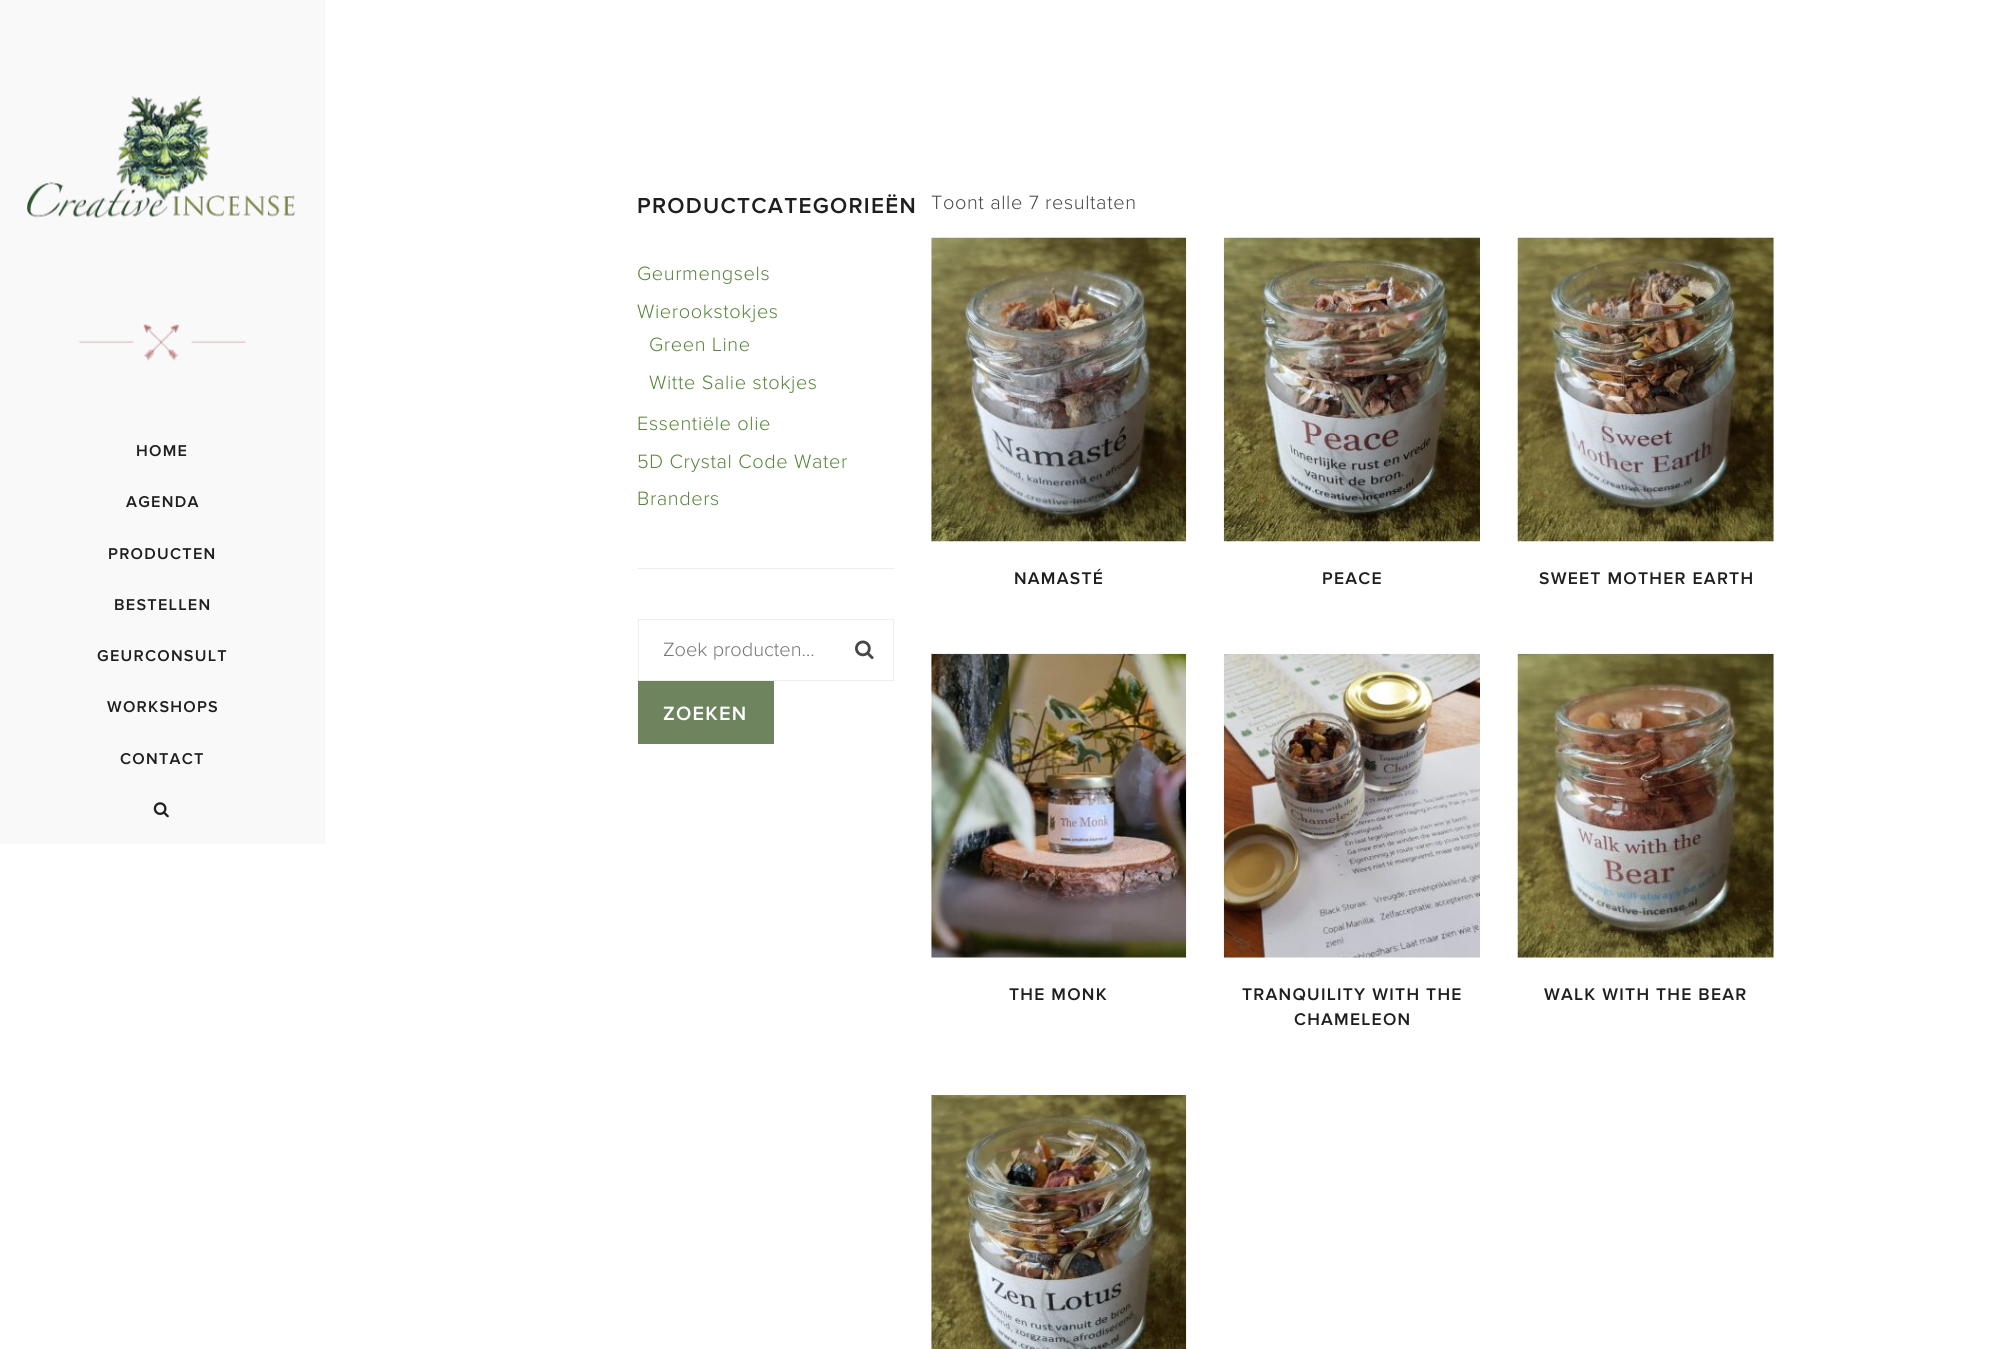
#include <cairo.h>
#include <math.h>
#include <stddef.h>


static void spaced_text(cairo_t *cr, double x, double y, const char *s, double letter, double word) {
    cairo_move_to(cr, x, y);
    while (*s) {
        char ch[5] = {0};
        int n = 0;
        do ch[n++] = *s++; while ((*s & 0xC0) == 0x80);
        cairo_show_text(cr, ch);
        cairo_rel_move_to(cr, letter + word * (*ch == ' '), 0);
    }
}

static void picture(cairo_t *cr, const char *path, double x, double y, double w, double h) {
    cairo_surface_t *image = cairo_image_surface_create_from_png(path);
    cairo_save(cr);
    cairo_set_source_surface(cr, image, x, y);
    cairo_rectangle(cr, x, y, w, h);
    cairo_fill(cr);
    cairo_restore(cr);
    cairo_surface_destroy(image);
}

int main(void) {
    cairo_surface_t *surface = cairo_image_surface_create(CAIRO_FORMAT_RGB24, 2011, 1349);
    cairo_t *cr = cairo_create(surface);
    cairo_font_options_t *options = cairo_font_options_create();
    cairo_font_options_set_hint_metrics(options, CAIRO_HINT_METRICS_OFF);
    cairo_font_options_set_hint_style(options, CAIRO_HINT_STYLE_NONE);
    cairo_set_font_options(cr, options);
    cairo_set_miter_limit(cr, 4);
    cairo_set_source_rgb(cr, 1, 1, 1);
    cairo_paint(cr);
    cairo_set_source_rgb(cr, 0.976, 0.976, 0.976);
    cairo_rectangle(cr, 0, 0, 325, 844);
    cairo_fill(cr);
    picture(cr, "img1.png", 26, 95, 270, 123);
    picture(cr, "img2.png", 78, 324, 169, 37);
    cairo_select_font_face(cr, "Proxima Nova SemiBold", CAIRO_FONT_SLANT_NORMAL, CAIRO_FONT_WEIGHT_NORMAL);
    cairo_set_font_size(cr, 16.25);
    cairo_set_source_rgb(cr, 0.122, 0.122, 0.122);
    spaced_text(cr, 136, 456, "HOME", 1.25, 0);
    spaced_text(cr, 126, 507, "AGENDA", 1.25, 0);
    spaced_text(cr, 108, 559, "PRODUCTEN", 1.25, 0);
    spaced_text(cr, 114, 610, "BESTELLEN", 1.25, 0);
    spaced_text(cr, 97, 661, "GEURCONSULT", 1.25, 0);
    spaced_text(cr, 107, 712, "WORKSHOPS", 1.25, 0);
    spaced_text(cr, 120, 764, "CONTACT", 1.25, 0);
    picture(cr, "img3.png", 153, 802, 16, 16);
    cairo_set_source_rgb(cr, 0.933, 0.933, 0.933);
    cairo_rectangle(cr, 638, 568, 256, 1);
    cairo_fill(cr);
    cairo_set_font_size(cr, 22.5);
    cairo_set_source_rgb(cr, 0.122, 0.122, 0.122);
    spaced_text(cr, 637, 213, "PRODUCTCATEGORIEËN", 1.25, 0);
    cairo_select_font_face(cr, "Proxima Nova Light", CAIRO_FONT_SLANT_NORMAL, CAIRO_FONT_WEIGHT_NORMAL);
    cairo_set_font_size(cr, 20);
    cairo_set_source_rgb(cr, 0.345, 0.518, 0.231);
    spaced_text(cr, 637, 280, "Geurmengsels", 0.6, 0);
    spaced_text(cr, 637, 318, "Wierookstokjes", 0.6, 0);
    spaced_text(cr, 649, 351, "Green Line", 0.6, 0);
    spaced_text(cr, 649, 389, "Witte Salie stokjes", 0.6, 0);
    spaced_text(cr, 637, 430, "Essentiële olie", 0.6, 0);
    spaced_text(cr, 637, 468, "5D Crystal Code Water", 0.6, 0);
    spaced_text(cr, 637, 505, "Branders", 0.6, 0);
    cairo_rectangle(cr, 638.5, 619.5, 255, 61);
    cairo_set_source_rgb(cr, 0.933, 0.933, 0.933);
    cairo_set_line_width(cr, 1);
    cairo_stroke(cr);
    cairo_set_source_rgb(cr, 0.459, 0.459, 0.459);
    cairo_move_to(cr, 663, 656);
    cairo_show_text(cr, "Zoek producten…");
    picture(cr, "img4.png", 855, 640, 19, 20);
    cairo_set_source_rgb(cr, 0.431, 0.518, 0.373);
    cairo_rectangle(cr, 638, 681, 136, 63);
    cairo_fill(cr);
    cairo_select_font_face(cr, "Proxima Nova SemiBold", CAIRO_FONT_SLANT_NORMAL, CAIRO_FONT_WEIGHT_NORMAL);
    cairo_set_source_rgb(cr, 1, 1, 1);
    spaced_text(cr, 663, 720, "ZOEKEN", 1.25, 0);
    cairo_select_font_face(cr, "Proxima Nova Light", CAIRO_FONT_SLANT_NORMAL, CAIRO_FONT_WEIGHT_NORMAL);
    cairo_set_source_rgb(cr, 0.278, 0.278, 0.278);
    spaced_text(cr, 931, 209, "Toont alle 7 resultaten", 0.6, 0);
    picture(cr, "img5.png", 931, 237, 256, 305);
    cairo_select_font_face(cr, "Proxima Nova SemiBold", CAIRO_FONT_SLANT_NORMAL, CAIRO_FONT_WEIGHT_NORMAL);
    cairo_set_font_size(cr, 17.5);
    cairo_set_source_rgb(cr, 0.122, 0.122, 0.122);
    spaced_text(cr, 1014, 584, "NAMASTÉ", 1.25, 0);
    picture(cr, "img6.png", 1223, 237, 257, 305);
    spaced_text(cr, 1322, 584, "PEACE", 1.25, 0);
    picture(cr, "img7.png", 1517, 237, 257, 305);
    spaced_text(cr, 1539, 584, "SWEET MOTHER EARTH", 1.25, 0);
    picture(cr, "img8.png", 931, 653, 256, 305);
    spaced_text(cr, 1009, 1000, "THE MONK", 1.25, 0);
    picture(cr, "img9.png", 1223, 653, 257, 305);
    spaced_text(cr, 1242, 1000, "TRANQUILITY WITH THE", 1.25, 0);
    spaced_text(cr, 1294, 1025, "CHAMELEON", 1.25, 0);
    picture(cr, "img10.png", 1517, 653, 257, 305);
    spaced_text(cr, 1544, 1000, "WALK WITH THE BEAR", 1.25, 0);
    picture(cr, "img11.png", 931, 1095, 256, 254);
    cairo_surface_write_to_png(surface, "page.png");
    cairo_font_options_destroy(options);
    cairo_destroy(cr);
    cairo_surface_destroy(surface);
    return 0;
}
